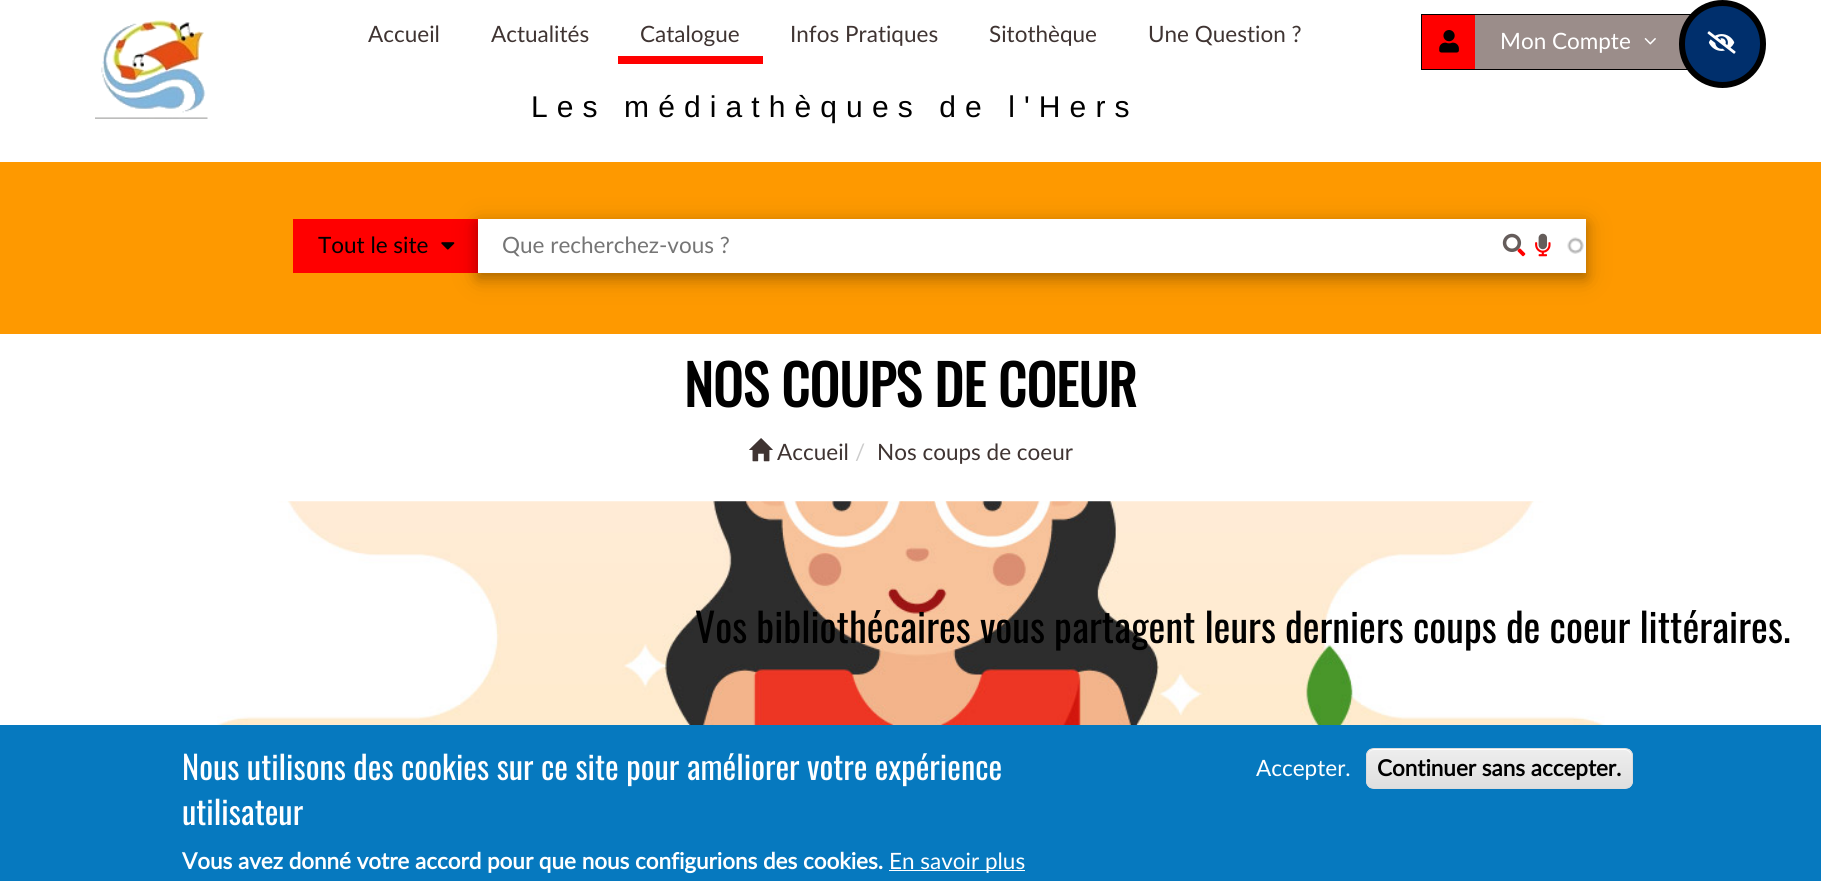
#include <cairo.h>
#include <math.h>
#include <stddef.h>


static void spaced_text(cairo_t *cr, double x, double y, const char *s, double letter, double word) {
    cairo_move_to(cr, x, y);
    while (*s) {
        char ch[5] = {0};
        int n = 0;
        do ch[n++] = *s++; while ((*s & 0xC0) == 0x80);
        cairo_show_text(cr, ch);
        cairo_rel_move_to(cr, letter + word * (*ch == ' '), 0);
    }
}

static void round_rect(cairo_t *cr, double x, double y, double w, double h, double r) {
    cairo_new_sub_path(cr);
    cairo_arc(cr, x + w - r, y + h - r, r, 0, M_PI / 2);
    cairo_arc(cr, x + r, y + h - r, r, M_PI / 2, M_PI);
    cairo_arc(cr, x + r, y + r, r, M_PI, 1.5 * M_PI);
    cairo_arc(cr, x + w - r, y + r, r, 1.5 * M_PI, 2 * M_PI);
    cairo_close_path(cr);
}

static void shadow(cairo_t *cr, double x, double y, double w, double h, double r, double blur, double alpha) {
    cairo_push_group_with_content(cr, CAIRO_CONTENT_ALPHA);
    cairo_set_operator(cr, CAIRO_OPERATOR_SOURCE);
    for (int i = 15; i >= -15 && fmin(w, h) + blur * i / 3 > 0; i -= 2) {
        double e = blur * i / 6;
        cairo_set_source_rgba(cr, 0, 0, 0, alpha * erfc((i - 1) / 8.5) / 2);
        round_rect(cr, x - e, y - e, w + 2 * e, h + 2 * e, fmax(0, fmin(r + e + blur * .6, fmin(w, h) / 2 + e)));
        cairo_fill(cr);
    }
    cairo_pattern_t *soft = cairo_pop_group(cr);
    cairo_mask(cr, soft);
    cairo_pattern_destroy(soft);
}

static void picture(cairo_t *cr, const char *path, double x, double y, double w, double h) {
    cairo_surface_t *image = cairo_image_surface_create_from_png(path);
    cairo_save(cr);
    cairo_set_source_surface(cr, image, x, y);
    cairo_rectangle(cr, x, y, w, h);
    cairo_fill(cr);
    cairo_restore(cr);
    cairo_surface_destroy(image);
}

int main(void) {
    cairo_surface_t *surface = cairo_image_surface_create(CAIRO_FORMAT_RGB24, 1821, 881);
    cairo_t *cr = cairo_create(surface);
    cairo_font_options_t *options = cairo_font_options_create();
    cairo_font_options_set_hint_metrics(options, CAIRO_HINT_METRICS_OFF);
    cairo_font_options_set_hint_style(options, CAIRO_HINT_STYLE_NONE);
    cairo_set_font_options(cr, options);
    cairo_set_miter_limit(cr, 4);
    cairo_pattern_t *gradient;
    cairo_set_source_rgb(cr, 1, 1, 1);
    cairo_paint(cr);
    picture(cr, "img1.png", 95, 20, 113, 99);
    cairo_select_font_face(cr, "Lato", CAIRO_FONT_SLANT_NORMAL, CAIRO_FONT_WEIGHT_NORMAL);
    cairo_set_font_size(cr, 22.5);
    cairo_set_source_rgb(cr, 0.247, 0.204, 0.196);
    cairo_move_to(cr, 368, 42);
    cairo_show_text(cr, "Accueil");
    cairo_move_to(cr, 491, 42);
    cairo_show_text(cr, "Actualités");
    cairo_set_source_rgb(cr, 1, 0, 0);
    cairo_rectangle(cr, 618, 56, 145, 8);
    cairo_fill(cr);
    cairo_set_source_rgb(cr, 0.247, 0.204, 0.196);
    cairo_move_to(cr, 640, 42);
    cairo_show_text(cr, "Catalogue");
    cairo_move_to(cr, 790, 42);
    cairo_show_text(cr, "Infos Pratiques");
    cairo_move_to(cr, 989, 42);
    cairo_show_text(cr, "Sitothèque");
    cairo_move_to(cr, 1148, 42);
    cairo_show_text(cr, "Une Question ?");
    cairo_select_font_face(cr, "Liberation Sans", CAIRO_FONT_SLANT_NORMAL, CAIRO_FONT_WEIGHT_NORMAL);
    cairo_set_font_size(cr, 30);
    cairo_set_source_rgb(cr, 0, 0, 0);
    spaced_text(cr, 531, 117, "Les médiathèques de l'Hers", 9.1, 0);
    cairo_set_source_rgb(cr, 1, 0, 0);
    cairo_rectangle(cr, 1422, 15, 53, 54);
    cairo_fill(cr);
    cairo_set_source_rgb(cr, 0, 0, 0);
    cairo_rectangle(cr, 1421, 14, 270, 1);
    cairo_fill(cr);
    cairo_rectangle(cr, 1421, 69, 270, 1);
    cairo_fill(cr);
    cairo_rectangle(cr, 1421, 14, 1, 56);
    cairo_fill(cr);
    picture(cr, "img2.png", 1439, 30, 20, 23);
    cairo_set_source_rgb(cr, 0.608, 0.553, 0.541);
    cairo_rectangle(cr, 1475, 15, 215, 54);
    cairo_fill(cr);
    cairo_set_source_rgb(cr, 0, 0.184, 0.424);
    round_rect(cr, 1682, 3, 81, 82, 40.5);
    cairo_fill_preserve(cr);
    cairo_set_source_rgb(cr, 0, 0, 0);
    cairo_set_line_width(cr, 6);
    cairo_stroke(cr);
    picture(cr, "img3.png", 1707, 31, 29, 23);
    cairo_select_font_face(cr, "Lato", CAIRO_FONT_SLANT_NORMAL, CAIRO_FONT_WEIGHT_NORMAL);
    cairo_set_font_size(cr, 22.5);
    cairo_set_source_rgb(cr, 1, 1, 1);
    cairo_move_to(cr, 1500, 49);
    cairo_show_text(cr, "Mon Compte");
    picture(cr, "img4.png", 1644, 38, 12, 7);
    cairo_set_source_rgb(cr, 0.996, 0.6, 0);
    cairo_rectangle(cr, 0, 162, 1821, 172);
    cairo_fill(cr);
    cairo_set_source_rgb(cr, 1, 0, 0);
    cairo_rectangle(cr, 293, 219, 185, 54);
    cairo_fill(cr);
    cairo_set_source_rgb(cr, 0, 0, 0);
    cairo_move_to(cr, 318, 253);
    cairo_show_text(cr, "Tout le site");
    cairo_set_source_rgb(cr, 0, 0, 0);
    shadow(cr, 478, 224, 1108, 54, 0, 12.5, 0.19);
    picture(cr, "img5.png", 441, 242, 14, 8);
    shadow(cr, 478, 224, 1108, 54, 0, 6, 0.2);
    cairo_set_source_rgb(cr, 1, 1, 1);
    cairo_rectangle(cr, 478, 219, 1108, 54);
    cairo_fill(cr);
    picture(cr, "img6.png", 1567, 237, 17, 17);
    cairo_set_source_rgb(cr, 0.459, 0.459, 0.459);
    cairo_move_to(cr, 502, 253);
    cairo_show_text(cr, "Que recherchez-vous ?");
    picture(cr, "img7.png", 1502, 233, 24, 24);
    picture(cr, "img8.png", 1535, 233, 16, 24);
    cairo_select_font_face(cr, "Oswald", CAIRO_FONT_SLANT_NORMAL, CAIRO_FONT_WEIGHT_BOLD);
    cairo_set_font_size(cr, 55);
    cairo_set_source_rgb(cr, 0, 0, 0);
    cairo_move_to(cr, 684, 407);
    cairo_show_text(cr, "NOS COUPS DE COEUR");
    picture(cr, "img9.png", 749, 438, 24, 24);
    cairo_select_font_face(cr, "Lato", CAIRO_FONT_SLANT_NORMAL, CAIRO_FONT_WEIGHT_NORMAL);
    cairo_set_font_size(cr, 22.5);
    cairo_set_source_rgb(cr, 0.247, 0.204, 0.196);
    cairo_move_to(cr, 777, 460);
    cairo_show_text(cr, "Accueil");
    cairo_set_source_rgb(cr, 0.8, 0.8, 0.8);
    cairo_move_to(cr, 855, 460);
    cairo_show_text(cr, "/");
    cairo_set_source_rgb(cr, 0.247, 0.204, 0.196);
    cairo_move_to(cr, 877, 460);
    cairo_show_text(cr, "Nos coups de coeur");
    picture(cr, "img10.png", 167, 501, 1484, 224);
    cairo_select_font_face(cr, "Oswald", CAIRO_FONT_SLANT_NORMAL, CAIRO_FONT_WEIGHT_NORMAL);
    cairo_set_font_size(cr, 40);
    cairo_set_source_rgb(cr, 0, 0, 0);
    cairo_move_to(cr, 695, 643);
    cairo_show_text(cr, "Vos bibliothécaires vous partagent leurs derniers coups de coeur littéraires.");
    cairo_set_source_rgb(cr, 0.027, 0.475, 0.749);
    cairo_rectangle(cr, 0, 725, 1821, 156);
    cairo_fill(cr);
    cairo_set_font_size(cr, 32.5);
    cairo_set_source_rgb(cr, 1, 1, 1);
    cairo_move_to(cr, 182, 780);
    cairo_show_text(cr, "Nous utilisons des cookies sur ce site pour améliorer votre expérience");
    cairo_move_to(cr, 182, 825);
    cairo_show_text(cr, "utilisateur");
    cairo_select_font_face(cr, "Lato", CAIRO_FONT_SLANT_NORMAL, CAIRO_FONT_WEIGHT_BOLD);
    cairo_set_font_size(cr, 22.5);
    cairo_move_to(cr, 182, 869);
    cairo_show_text(cr, "Vous avez donné votre accord pour que nous configurions des cookies.");
    cairo_rectangle(cr, 889, 870, 136, 1);
    cairo_fill(cr);
    cairo_select_font_face(cr, "Lato", CAIRO_FONT_SLANT_NORMAL, CAIRO_FONT_WEIGHT_NORMAL);
    cairo_move_to(cr, 889, 869);
    cairo_show_text(cr, "En savoir plus");
    cairo_move_to(cr, 1256, 776);
    cairo_show_text(cr, "Accepter.");
    cairo_save(cr);
    round_rect(cr, 1366, 748, 267, 41, 8);
    cairo_clip(cr);
    gradient = cairo_pattern_create_linear(1499, 749, 1499, 788);
    cairo_pattern_add_color_stop_rgba(gradient, 0.05, 0.929, 0.929, 0.929, 1);
    cairo_pattern_add_color_stop_rgba(gradient, 1, 0.875, 0.875, 0.875, 1);
    cairo_set_source(cr, gradient);
    cairo_pattern_destroy(gradient);
    cairo_rectangle(cr, 1366, 749, 267, 39);
    cairo_fill(cr);
    cairo_restore(cr);
    cairo_new_path(cr);
    cairo_move_to(cr, 1374, 750);
    cairo_line_to(cr, 1625, 750);
    cairo_curve_to(cr, 1628, 750, 1631, 753, 1631, 756);
    cairo_line_to(cr, 1631, 755);
    cairo_curve_to(cr, 1631, 752, 1628, 749, 1625, 749);
    cairo_line_to(cr, 1374, 749);
    cairo_curve_to(cr, 1371, 749, 1368, 752, 1368, 755);
    cairo_line_to(cr, 1368, 756);
    cairo_curve_to(cr, 1368, 753, 1370, 750, 1374, 750);
    cairo_close_path(cr);
    cairo_fill(cr);
    round_rect(cr, 1366.5, 748.5, 266, 40, 7.5);
    cairo_set_source_rgb(cr, 0.863, 0.863, 0.863);
    cairo_set_line_width(cr, 1);
    cairo_stroke(cr);
    cairo_select_font_face(cr, "Lato", CAIRO_FONT_SLANT_NORMAL, CAIRO_FONT_WEIGHT_BOLD);
    cairo_set_source_rgb(cr, 0, 0, 0);
    cairo_move_to(cr, 1377, 776);
    cairo_show_text(cr, "Continuer sans accepter.");
    cairo_surface_write_to_png(surface, "page.png");
    cairo_font_options_destroy(options);
    cairo_destroy(cr);
    cairo_surface_destroy(surface);
    return 0;
}
